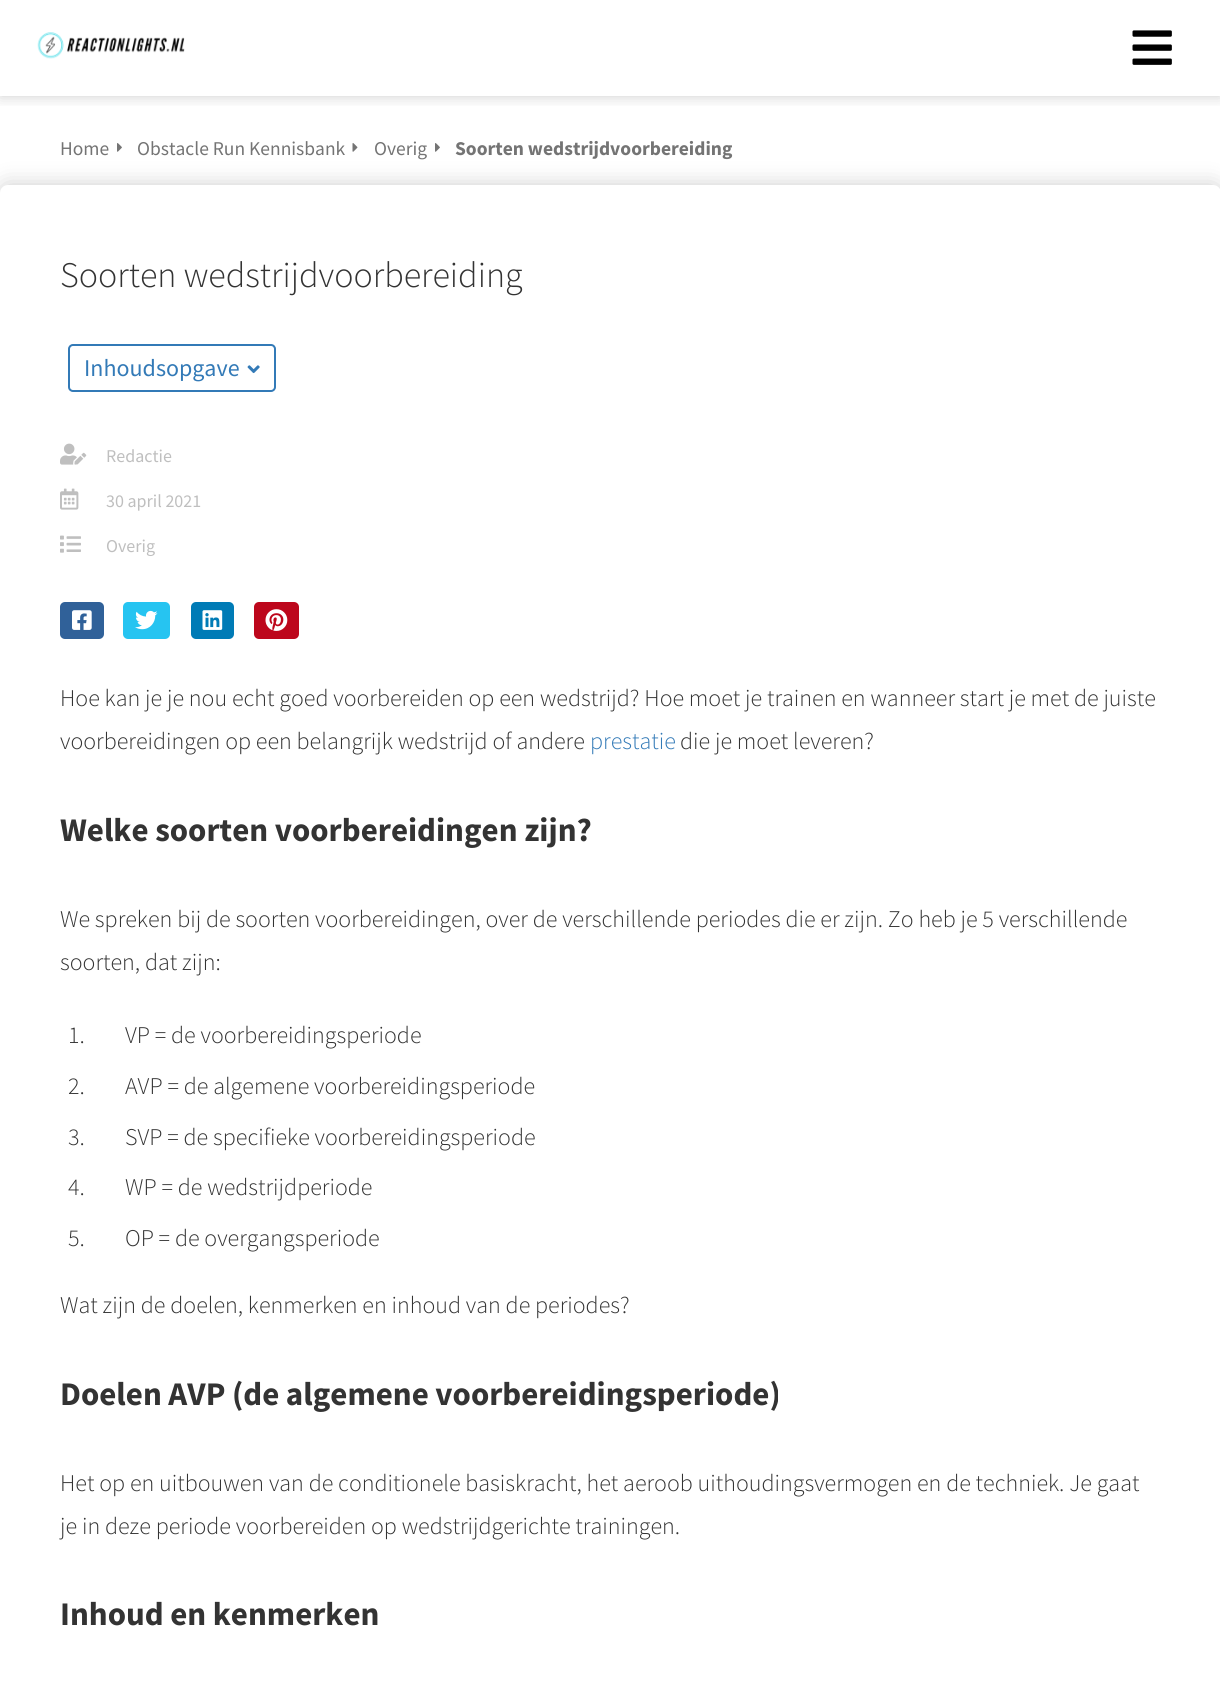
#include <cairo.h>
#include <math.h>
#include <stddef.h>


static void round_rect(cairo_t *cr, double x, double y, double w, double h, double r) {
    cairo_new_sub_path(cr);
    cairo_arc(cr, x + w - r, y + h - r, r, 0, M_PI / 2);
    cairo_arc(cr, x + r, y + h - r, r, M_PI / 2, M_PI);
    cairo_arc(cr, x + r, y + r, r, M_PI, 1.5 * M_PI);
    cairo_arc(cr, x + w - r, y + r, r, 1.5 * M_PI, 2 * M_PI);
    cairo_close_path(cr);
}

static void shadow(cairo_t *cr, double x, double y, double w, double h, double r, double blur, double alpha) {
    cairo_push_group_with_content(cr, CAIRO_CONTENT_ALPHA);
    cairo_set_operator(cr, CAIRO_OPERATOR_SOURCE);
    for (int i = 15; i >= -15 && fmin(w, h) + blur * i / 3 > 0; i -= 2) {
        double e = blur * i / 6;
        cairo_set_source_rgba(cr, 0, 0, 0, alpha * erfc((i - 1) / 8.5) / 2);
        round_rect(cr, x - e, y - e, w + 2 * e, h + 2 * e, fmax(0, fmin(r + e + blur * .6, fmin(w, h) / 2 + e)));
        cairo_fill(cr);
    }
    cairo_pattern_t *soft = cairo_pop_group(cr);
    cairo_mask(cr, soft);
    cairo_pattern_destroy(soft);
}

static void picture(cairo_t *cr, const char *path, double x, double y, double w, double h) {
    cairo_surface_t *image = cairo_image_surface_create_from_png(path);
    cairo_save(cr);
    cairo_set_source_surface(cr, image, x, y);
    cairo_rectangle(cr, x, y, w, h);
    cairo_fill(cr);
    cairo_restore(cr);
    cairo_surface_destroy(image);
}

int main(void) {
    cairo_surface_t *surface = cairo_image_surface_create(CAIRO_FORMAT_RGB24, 1220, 1700);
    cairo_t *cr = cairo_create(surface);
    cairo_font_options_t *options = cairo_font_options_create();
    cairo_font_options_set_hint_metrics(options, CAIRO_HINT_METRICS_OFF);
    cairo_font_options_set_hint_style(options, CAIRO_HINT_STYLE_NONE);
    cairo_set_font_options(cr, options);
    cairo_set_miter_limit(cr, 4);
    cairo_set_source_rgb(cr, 1, 1, 1);
    cairo_paint(cr);
    cairo_save(cr);
    cairo_rectangle(cr, 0, 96, 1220, 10);
    cairo_clip(cr);
    cairo_set_source_rgb(cr, 0, 0, 0);
    shadow(cr, 0, 0, 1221, 96, 0, 7.5, 0.2);
    cairo_restore(cr);
    picture(cr, "img1.png", 37, 32, 148, 27);
    picture(cr, "img2.png", 1132, 30, 40, 35);
    cairo_set_source_rgb(cr, 0, 0, 0);
    shadow(cr, 0, 185, 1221, 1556, 8, 11, 0.2);
    cairo_select_font_face(cr, "Source Sans Pro", CAIRO_FONT_SLANT_NORMAL, CAIRO_FONT_WEIGHT_NORMAL);
    cairo_set_font_size(cr, 19.5);
    cairo_set_source_rgb(cr, 0.455, 0.455, 0.455);
    cairo_move_to(cr, 60, 155);
    cairo_show_text(cr, "Home");
    picture(cr, "img3.png", 117, 143, 5, 9);
    cairo_move_to(cr, 137, 155);
    cairo_show_text(cr, "Obstacle Run Kennisbank");
    picture(cr, "img4.png", 352, 143, 6, 9);
    cairo_move_to(cr, 374, 155);
    cairo_show_text(cr, "Overig");
    picture(cr, "img3.png", 435, 143, 5, 9);
    cairo_select_font_face(cr, "Source Sans Pro", CAIRO_FONT_SLANT_NORMAL, CAIRO_FONT_WEIGHT_BOLD);
    cairo_move_to(cr, 455, 155);
    cairo_show_text(cr, "Soorten wedstrijdvoorbereiding");
    cairo_set_source_rgb(cr, 1, 1, 1);
    round_rect(cr, 0, 185, 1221, 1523, 8);
    cairo_fill(cr);
    cairo_select_font_face(cr, "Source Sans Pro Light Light", CAIRO_FONT_SLANT_NORMAL, CAIRO_FONT_WEIGHT_NORMAL);
    cairo_set_font_size(cr, 36);
    cairo_set_source_rgb(cr, 0.2, 0.2, 0.2);
    cairo_move_to(cr, 60, 287);
    cairo_show_text(cr, "Soorten wedstrijdvoorbereiding");
    round_rect(cr, 69, 345, 206, 46, 4);
    cairo_set_source_rgb(cr, 0.2, 0.478, 0.718);
    cairo_stroke(cr);
    cairo_select_font_face(cr, "Source Sans Pro", CAIRO_FONT_SLANT_NORMAL, CAIRO_FONT_WEIGHT_NORMAL);
    cairo_set_font_size(cr, 24);
    cairo_move_to(cr, 84, 376);
    cairo_show_text(cr, "Inhoudsopgave");
    picture(cr, "img5.png", 247, 365, 13, 9);
    picture(cr, "img6.png", 60, 443, 27, 22);
    cairo_set_font_size(cr, 18);
    cairo_set_source_rgb(cr, 0.749, 0.749, 0.749);
    cairo_move_to(cr, 106, 462);
    cairo_show_text(cr, "Redactie");
    picture(cr, "img7.png", 60, 488, 19, 22);
    cairo_move_to(cr, 106, 507);
    cairo_show_text(cr, "30 april 2021");
    picture(cr, "img8.png", 60, 535, 21, 18);
    cairo_move_to(cr, 106, 552);
    cairo_show_text(cr, "Overig");
    cairo_set_source_rgb(cr, 0.188, 0.38, 0.6);
    round_rect(cr, 60, 602, 44, 37, 5);
    cairo_fill(cr);
    picture(cr, "img9.png", 72, 610, 20, 20);
    cairo_set_source_rgb(cr, 0.149, 0.769, 0.945);
    round_rect(cr, 123, 602, 47, 37, 5);
    cairo_fill(cr);
    picture(cr, "img10.png", 135, 610, 23, 20);
    cairo_set_source_rgb(cr, 0, 0.482, 0.714);
    round_rect(cr, 191, 602, 43, 37, 5);
    cairo_fill(cr);
    picture(cr, "img11.png", 202, 610, 21, 20);
    cairo_set_source_rgb(cr, 0.741, 0.031, 0.11);
    round_rect(cr, 254, 602, 45, 37, 5);
    cairo_fill(cr);
    picture(cr, "img12.png", 265, 609, 23, 22);
    cairo_select_font_face(cr, "Source Sans Pro Light Light", CAIRO_FONT_SLANT_NORMAL, CAIRO_FONT_WEIGHT_NORMAL);
    cairo_set_font_size(cr, 24);
    cairo_set_source_rgb(cr, 0.2, 0.2, 0.2);
    cairo_move_to(cr, 60, 706);
    cairo_show_text(cr, "Hoe kan je je nou echt goed voorbereiden op een wedstrijd? Hoe moet je trainen en wanneer start je met de juiste");
    cairo_move_to(cr, 60, 749);
    cairo_show_text(cr, "voorbereidingen op een belangrijk wedstrijd of andere");
    cairo_set_source_rgb(cr, 0.2, 0.478, 0.718);
    cairo_move_to(cr, 590, 749);
    cairo_show_text(cr, "prestatie");
    cairo_set_source_rgb(cr, 0.2, 0.2, 0.2);
    cairo_move_to(cr, 680, 749);
    cairo_show_text(cr, "die je moet leveren?");
    cairo_select_font_face(cr, "Source Sans Pro", CAIRO_FONT_SLANT_NORMAL, CAIRO_FONT_WEIGHT_BOLD);
    cairo_set_font_size(cr, 33);
    cairo_move_to(cr, 60, 841);
    cairo_show_text(cr, "Welke soorten voorbereidingen zijn?");
    cairo_select_font_face(cr, "Source Sans Pro Light Light", CAIRO_FONT_SLANT_NORMAL, CAIRO_FONT_WEIGHT_NORMAL);
    cairo_set_font_size(cr, 24);
    cairo_move_to(cr, 60, 927);
    cairo_show_text(cr, "We spreken bij de soorten voorbereidingen, over de verschillende periodes die er zijn. Zo heb je 5 verschillende");
    cairo_move_to(cr, 60, 970);
    cairo_show_text(cr, "soorten, dat zijn:");
    cairo_move_to(cr, 68, 1043);
    cairo_show_text(cr, "1.");
    cairo_move_to(cr, 125, 1043);
    cairo_show_text(cr, "VP = de voorbereidingsperiode");
    cairo_move_to(cr, 68, 1094);
    cairo_show_text(cr, "2.");
    cairo_move_to(cr, 125, 1094);
    cairo_show_text(cr, "AVP = de algemene voorbereidingsperiode");
    cairo_move_to(cr, 68, 1145);
    cairo_show_text(cr, "3.");
    cairo_move_to(cr, 125, 1145);
    cairo_show_text(cr, "SVP = de specifieke voorbereidingsperiode");
    cairo_move_to(cr, 68, 1195);
    cairo_show_text(cr, "4.");
    cairo_move_to(cr, 125, 1195);
    cairo_show_text(cr, "WP = de wedstrijdperiode");
    cairo_move_to(cr, 68, 1246);
    cairo_show_text(cr, "5.");
    cairo_move_to(cr, 125, 1246);
    cairo_show_text(cr, "OP = de overgangsperiode");
    cairo_move_to(cr, 60, 1313);
    cairo_show_text(cr, "Wat zijn de doelen, kenmerken en inhoud van de periodes?");
    cairo_select_font_face(cr, "Source Sans Pro", CAIRO_FONT_SLANT_NORMAL, CAIRO_FONT_WEIGHT_BOLD);
    cairo_set_font_size(cr, 33);
    cairo_move_to(cr, 60, 1405);
    cairo_show_text(cr, "Doelen AVP (de algemene voorbereidingsperiode)");
    cairo_select_font_face(cr, "Source Sans Pro Light Light", CAIRO_FONT_SLANT_NORMAL, CAIRO_FONT_WEIGHT_NORMAL);
    cairo_set_font_size(cr, 24);
    cairo_move_to(cr, 60, 1491);
    cairo_show_text(cr, "Het op en uitbouwen van de conditionele basiskracht, het aeroob uithoudingsvermogen en de techniek. Je gaat");
    cairo_move_to(cr, 60, 1534);
    cairo_show_text(cr, "je in deze periode voorbereiden op wedstrijdgerichte trainingen.");
    cairo_select_font_face(cr, "Source Sans Pro", CAIRO_FONT_SLANT_NORMAL, CAIRO_FONT_WEIGHT_BOLD);
    cairo_set_font_size(cr, 33);
    cairo_move_to(cr, 60, 1625);
    cairo_show_text(cr, "Inhoud en kenmerken");
    cairo_surface_write_to_png(surface, "page.png");
    cairo_font_options_destroy(options);
    cairo_destroy(cr);
    cairo_surface_destroy(surface);
    return 0;
}
